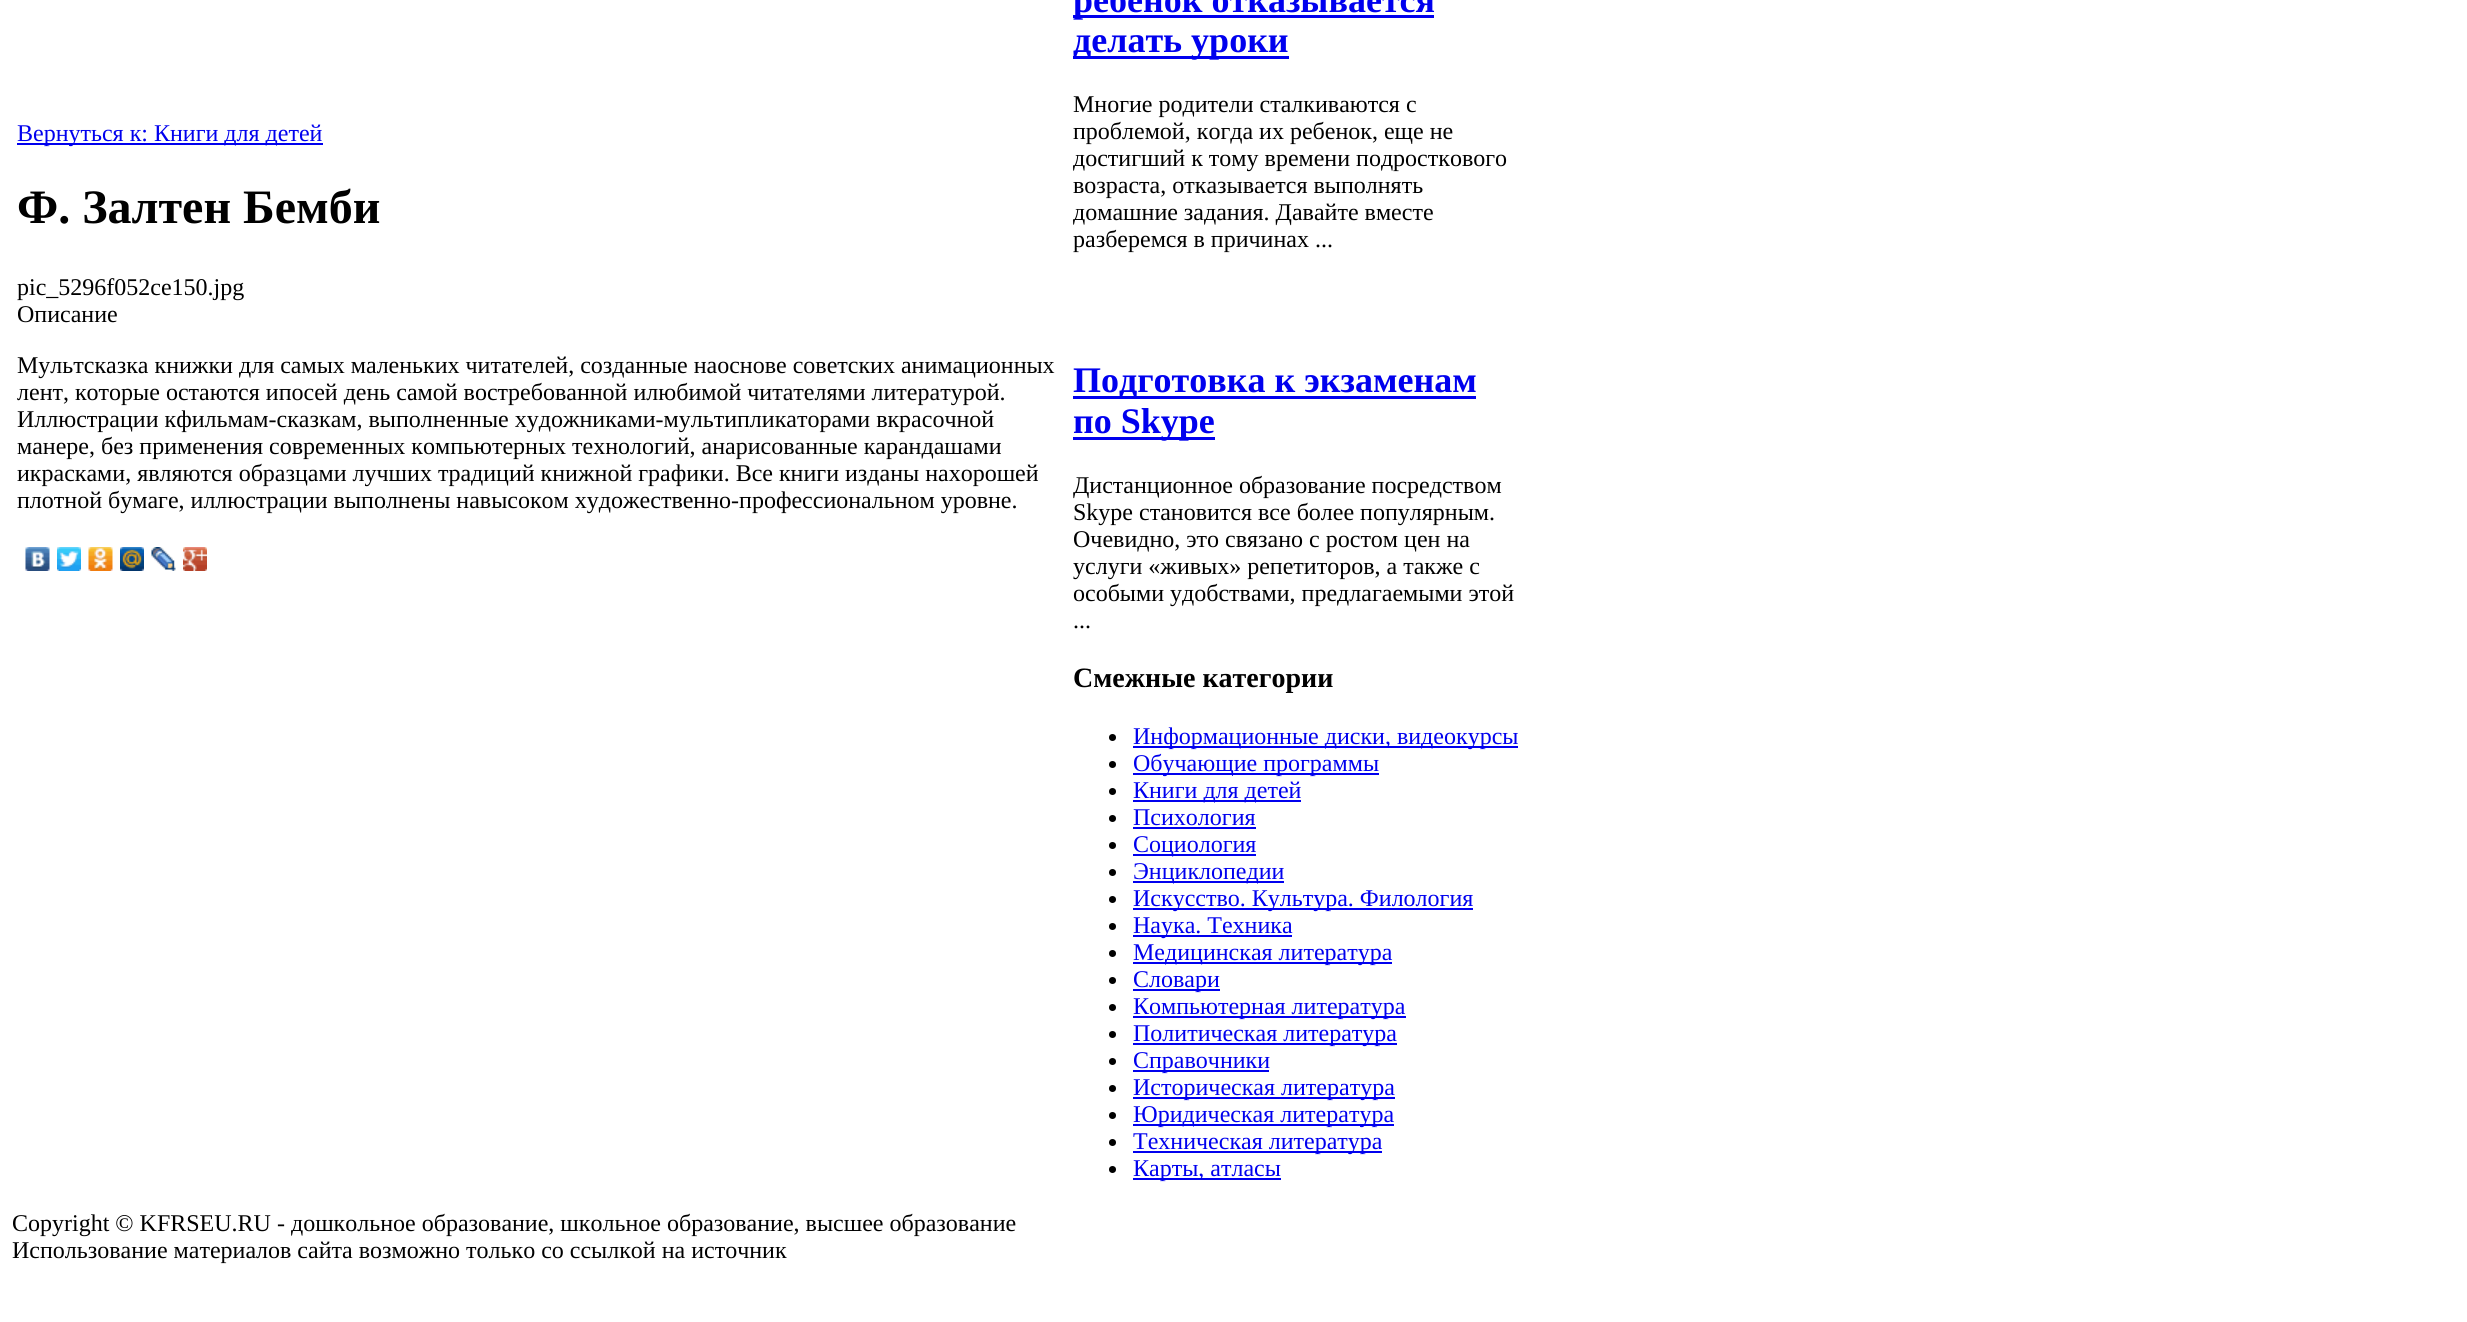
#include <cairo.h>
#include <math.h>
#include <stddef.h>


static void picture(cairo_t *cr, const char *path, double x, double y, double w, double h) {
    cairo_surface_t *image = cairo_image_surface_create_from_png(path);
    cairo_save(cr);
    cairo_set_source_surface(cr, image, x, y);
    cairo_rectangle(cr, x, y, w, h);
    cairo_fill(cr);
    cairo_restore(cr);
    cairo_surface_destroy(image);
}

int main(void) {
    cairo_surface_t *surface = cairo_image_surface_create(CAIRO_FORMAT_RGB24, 2467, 1322);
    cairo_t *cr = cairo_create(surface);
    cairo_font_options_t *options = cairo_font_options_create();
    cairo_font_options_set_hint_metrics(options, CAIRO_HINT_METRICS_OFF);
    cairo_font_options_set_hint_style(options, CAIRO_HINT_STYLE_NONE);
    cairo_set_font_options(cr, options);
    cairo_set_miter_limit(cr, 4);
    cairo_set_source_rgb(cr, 1, 1, 1);
    cairo_paint(cr);
    cairo_set_source_rgb(cr, 0, 0, 0.933);
    cairo_rectangle(cr, 17, 143, 306, 2);
    cairo_fill(cr);
    cairo_select_font_face(cr, "Liberation Serif", CAIRO_FONT_SLANT_NORMAL, CAIRO_FONT_WEIGHT_NORMAL);
    cairo_set_font_size(cr, 24);
    cairo_move_to(cr, 17, 141);
    cairo_show_text(cr, "Вернуться к: Книги для детей");
    cairo_select_font_face(cr, "Liberation Serif", CAIRO_FONT_SLANT_NORMAL, CAIRO_FONT_WEIGHT_BOLD);
    cairo_set_font_size(cr, 48);
    cairo_set_source_rgb(cr, 0, 0, 0);
    cairo_move_to(cr, 17, 223);
    cairo_show_text(cr, "Ф. Залтен Бемби");
    cairo_select_font_face(cr, "Liberation Serif", CAIRO_FONT_SLANT_NORMAL, CAIRO_FONT_WEIGHT_NORMAL);
    cairo_set_font_size(cr, 24);
    cairo_move_to(cr, 17, 295);
    cairo_show_text(cr, "pic_5296f052ce150.jpg");
    cairo_move_to(cr, 17, 322);
    cairo_show_text(cr, "Описание");
    cairo_move_to(cr, 17, 373);
    cairo_show_text(cr, "Мультсказка книжки для самых маленьких читателей, созданные наоснове советских анимационных");
    cairo_move_to(cr, 17, 400);
    cairo_show_text(cr, "лент, которые остаются ипосей день самой востребованной илюбимой читателями литературой.");
    cairo_move_to(cr, 17, 427);
    cairo_show_text(cr, "Иллюстрации кфильмам-сказкам, выполненные художниками-мультипликаторами вкрасочной");
    cairo_move_to(cr, 17, 454);
    cairo_show_text(cr, "манере, без применения современных компьютерных технологий, анарисованные карандашами");
    cairo_move_to(cr, 17, 481);
    cairo_show_text(cr, "икрасками, являются образцами лучших традиций книжной графики. Все книги изданы нахорошей");
    cairo_move_to(cr, 17, 508);
    cairo_show_text(cr, "плотной бумаге, иллюстрации выполнены навысоком художественно-профессиональном уровне.");
    picture(cr, "img1.png", 25, 547, 25, 24);
    picture(cr, "img2.png", 57, 547, 24, 24);
    picture(cr, "img3.png", 88, 547, 25, 24);
    picture(cr, "img4.png", 120, 547, 24, 24);
    picture(cr, "img5.png", 151, 547, 25, 24);
    picture(cr, "img6.png", 183, 547, 24, 24);
    cairo_set_source_rgb(cr, 0, 0, 0.933);
    cairo_rectangle(cr, 1073, 15, 361, 3);
    cairo_fill(cr);
    cairo_select_font_face(cr, "Liberation Serif", CAIRO_FONT_SLANT_NORMAL, CAIRO_FONT_WEIGHT_BOLD);
    cairo_set_font_size(cr, 36);
    cairo_move_to(cr, 1073, 12);
    cairo_show_text(cr, "ребенок отказывается");
    cairo_rectangle(cr, 1073, 56, 216, 3);
    cairo_fill(cr);
    cairo_move_to(cr, 1073, 52);
    cairo_show_text(cr, "делать уроки");
    cairo_select_font_face(cr, "Liberation Serif", CAIRO_FONT_SLANT_NORMAL, CAIRO_FONT_WEIGHT_NORMAL);
    cairo_set_font_size(cr, 24);
    cairo_set_source_rgb(cr, 0, 0, 0);
    cairo_move_to(cr, 1073, 112);
    cairo_show_text(cr, "Многие родители сталкиваются с");
    cairo_move_to(cr, 1073, 139);
    cairo_show_text(cr, "проблемой, когда их ребенок, еще не");
    cairo_move_to(cr, 1073, 166);
    cairo_show_text(cr, "достигший к тому времени подросткового");
    cairo_move_to(cr, 1073, 193);
    cairo_show_text(cr, "возраста, отказывается выполнять");
    cairo_move_to(cr, 1073, 220);
    cairo_show_text(cr, "домашние задания. Давайте вместе");
    cairo_move_to(cr, 1073, 247);
    cairo_show_text(cr, "разберемся в причинах ...");
    cairo_set_source_rgb(cr, 0, 0, 0.933);
    cairo_rectangle(cr, 1073, 396, 403, 3);
    cairo_fill(cr);
    cairo_select_font_face(cr, "Liberation Serif", CAIRO_FONT_SLANT_NORMAL, CAIRO_FONT_WEIGHT_BOLD);
    cairo_set_font_size(cr, 36);
    cairo_move_to(cr, 1073, 392);
    cairo_show_text(cr, "Подготовка к экзаменам");
    cairo_rectangle(cr, 1073, 437, 142, 3);
    cairo_fill(cr);
    cairo_move_to(cr, 1073, 433);
    cairo_show_text(cr, "по Skype");
    cairo_select_font_face(cr, "Liberation Serif", CAIRO_FONT_SLANT_NORMAL, CAIRO_FONT_WEIGHT_NORMAL);
    cairo_set_font_size(cr, 24);
    cairo_set_source_rgb(cr, 0, 0, 0);
    cairo_move_to(cr, 1073, 493);
    cairo_show_text(cr, "Дистанционное образование посредством");
    cairo_move_to(cr, 1073, 520);
    cairo_show_text(cr, "Skype становится все более популярным.");
    cairo_move_to(cr, 1073, 547);
    cairo_show_text(cr, "Очевидно, это связано с ростом цен на");
    cairo_move_to(cr, 1073, 574);
    cairo_show_text(cr, "услуги «живых» репетиторов, а также с");
    cairo_move_to(cr, 1073, 601);
    cairo_show_text(cr, "особыми удобствами, предлагаемыми этой");
    cairo_move_to(cr, 1073, 628);
    cairo_show_text(cr, "...");
    cairo_select_font_face(cr, "Liberation Serif", CAIRO_FONT_SLANT_NORMAL, CAIRO_FONT_WEIGHT_BOLD);
    cairo_set_font_size(cr, 28);
    cairo_move_to(cr, 1073, 687);
    cairo_show_text(cr, "Смежные категории");
    cairo_new_path(cr);
    cairo_arc(cr, 1112.5, 737.5, 3.5, 0, 2 * M_PI);
    cairo_fill(cr);
    cairo_set_source_rgb(cr, 0, 0, 0.933);
    cairo_rectangle(cr, 1133, 746, 385, 2);
    cairo_fill(cr);
    cairo_select_font_face(cr, "Liberation Serif", CAIRO_FONT_SLANT_NORMAL, CAIRO_FONT_WEIGHT_NORMAL);
    cairo_set_font_size(cr, 24);
    cairo_move_to(cr, 1133, 744);
    cairo_show_text(cr, "Информационные диски, видеокурсы");
    cairo_set_source_rgb(cr, 0, 0, 0);
    cairo_new_path(cr);
    cairo_arc(cr, 1112.5, 764.5, 3.5, 0, 2 * M_PI);
    cairo_fill(cr);
    cairo_set_source_rgb(cr, 0, 0, 0.933);
    cairo_rectangle(cr, 1133, 773, 246, 2);
    cairo_fill(cr);
    cairo_move_to(cr, 1133, 771);
    cairo_show_text(cr, "Обучающие программы");
    cairo_set_source_rgb(cr, 0, 0, 0);
    cairo_new_path(cr);
    cairo_arc(cr, 1112.5, 791.5, 3.5, 0, 2 * M_PI);
    cairo_fill(cr);
    cairo_set_source_rgb(cr, 0, 0, 0.933);
    cairo_rectangle(cr, 1133, 800, 168, 2);
    cairo_fill(cr);
    cairo_move_to(cr, 1133, 798);
    cairo_show_text(cr, "Книги для детей");
    cairo_set_source_rgb(cr, 0, 0, 0);
    cairo_new_path(cr);
    cairo_arc(cr, 1112.5, 818.5, 3.5, 0, 2 * M_PI);
    cairo_fill(cr);
    cairo_set_source_rgb(cr, 0, 0, 0.933);
    cairo_move_to(cr, 1133, 825);
    cairo_show_text(cr, "Психология");
    cairo_rectangle(cr, 1133, 827, 123, 2);
    cairo_fill(cr);
    cairo_set_source_rgb(cr, 0, 0, 0);
    cairo_arc(cr, 1112.5, 845.5, 3.5, 0, 2 * M_PI);
    cairo_fill(cr);
    cairo_set_source_rgb(cr, 0, 0, 0.933);
    cairo_rectangle(cr, 1133, 854, 123, 2);
    cairo_fill(cr);
    cairo_move_to(cr, 1133, 852);
    cairo_show_text(cr, "Социология");
    cairo_set_source_rgb(cr, 0, 0, 0);
    cairo_new_path(cr);
    cairo_arc(cr, 1112.5, 872.5, 3.5, 0, 2 * M_PI);
    cairo_fill(cr);
    cairo_set_source_rgb(cr, 0, 0, 0.933);
    cairo_rectangle(cr, 1133, 881, 151, 2);
    cairo_fill(cr);
    cairo_move_to(cr, 1133, 879);
    cairo_show_text(cr, "Энциклопедии");
    cairo_set_source_rgb(cr, 0, 0, 0);
    cairo_new_path(cr);
    cairo_arc(cr, 1112.5, 899.5, 3.5, 0, 2 * M_PI);
    cairo_fill(cr);
    cairo_set_source_rgb(cr, 0, 0, 0.933);
    cairo_rectangle(cr, 1133, 908, 340, 2);
    cairo_fill(cr);
    cairo_move_to(cr, 1133, 906);
    cairo_show_text(cr, "Искусство. Культура. Филология");
    cairo_set_source_rgb(cr, 0, 0, 0);
    cairo_new_path(cr);
    cairo_arc(cr, 1112.5, 926.5, 3.5, 0, 2 * M_PI);
    cairo_fill(cr);
    cairo_set_source_rgb(cr, 0, 0, 0.933);
    cairo_rectangle(cr, 1133, 935, 159, 2);
    cairo_fill(cr);
    cairo_move_to(cr, 1133, 933);
    cairo_show_text(cr, "Наука. Техника");
    cairo_set_source_rgb(cr, 0, 0, 0);
    cairo_new_path(cr);
    cairo_arc(cr, 1112.5, 953.5, 3.5, 0, 2 * M_PI);
    cairo_fill(cr);
    cairo_set_source_rgb(cr, 0, 0, 0.933);
    cairo_rectangle(cr, 1133, 962, 259, 2);
    cairo_fill(cr);
    cairo_move_to(cr, 1133, 960);
    cairo_show_text(cr, "Медицинская литература");
    cairo_set_source_rgb(cr, 0, 0, 0);
    cairo_new_path(cr);
    cairo_arc(cr, 1112.5, 980.5, 3.5, 0, 2 * M_PI);
    cairo_fill(cr);
    cairo_set_source_rgb(cr, 0, 0, 0.933);
    cairo_rectangle(cr, 1133, 989, 87, 2);
    cairo_fill(cr);
    cairo_move_to(cr, 1133, 987);
    cairo_show_text(cr, "Словари");
    cairo_set_source_rgb(cr, 0, 0, 0);
    cairo_new_path(cr);
    cairo_arc(cr, 1112.5, 1007.5, 3.5, 0, 2 * M_PI);
    cairo_fill(cr);
    cairo_set_source_rgb(cr, 0, 0, 0.933);
    cairo_rectangle(cr, 1133, 1016, 273, 2);
    cairo_fill(cr);
    cairo_move_to(cr, 1133, 1014);
    cairo_show_text(cr, "Компьютерная литература");
    cairo_set_source_rgb(cr, 0, 0, 0);
    cairo_new_path(cr);
    cairo_arc(cr, 1112.5, 1034.5, 3.5, 0, 2 * M_PI);
    cairo_fill(cr);
    cairo_set_source_rgb(cr, 0, 0, 0.933);
    cairo_rectangle(cr, 1133, 1043, 264, 2);
    cairo_fill(cr);
    cairo_move_to(cr, 1133, 1041);
    cairo_show_text(cr, "Политическая литература");
    cairo_set_source_rgb(cr, 0, 0, 0);
    cairo_new_path(cr);
    cairo_arc(cr, 1112.5, 1061.5, 3.5, 0, 2 * M_PI);
    cairo_fill(cr);
    cairo_set_source_rgb(cr, 0, 0, 0.933);
    cairo_rectangle(cr, 1133, 1070, 136, 2);
    cairo_fill(cr);
    cairo_move_to(cr, 1133, 1068);
    cairo_show_text(cr, "Справочники");
    cairo_set_source_rgb(cr, 0, 0, 0);
    cairo_new_path(cr);
    cairo_arc(cr, 1112.5, 1088.5, 3.5, 0, 2 * M_PI);
    cairo_fill(cr);
    cairo_set_source_rgb(cr, 0, 0, 0.933);
    cairo_rectangle(cr, 1133, 1097, 262, 2);
    cairo_fill(cr);
    cairo_move_to(cr, 1133, 1095);
    cairo_show_text(cr, "Историческая литература");
    cairo_set_source_rgb(cr, 0, 0, 0);
    cairo_new_path(cr);
    cairo_arc(cr, 1112.5, 1115.5, 3.5, 0, 2 * M_PI);
    cairo_fill(cr);
    cairo_set_source_rgb(cr, 0, 0, 0.933);
    cairo_rectangle(cr, 1133, 1124, 261, 2);
    cairo_fill(cr);
    cairo_move_to(cr, 1133, 1122);
    cairo_show_text(cr, "Юридическая литература");
    cairo_set_source_rgb(cr, 0, 0, 0);
    cairo_new_path(cr);
    cairo_arc(cr, 1112.5, 1142.5, 3.5, 0, 2 * M_PI);
    cairo_fill(cr);
    cairo_set_source_rgb(cr, 0, 0, 0.933);
    cairo_rectangle(cr, 1133, 1151, 249, 2);
    cairo_fill(cr);
    cairo_move_to(cr, 1133, 1149);
    cairo_show_text(cr, "Техническая литература");
    cairo_set_source_rgb(cr, 0, 0, 0);
    cairo_new_path(cr);
    cairo_arc(cr, 1112.5, 1169.5, 3.5, 0, 2 * M_PI);
    cairo_fill(cr);
    cairo_set_source_rgb(cr, 0, 0, 0.933);
    cairo_rectangle(cr, 1133, 1178, 148, 2);
    cairo_fill(cr);
    cairo_move_to(cr, 1133, 1176);
    cairo_show_text(cr, "Карты, атласы");
    cairo_set_source_rgb(cr, 0, 0, 0);
    cairo_move_to(cr, 12, 1231);
    cairo_show_text(cr, "Copyright © KFRSEU.RU - дошкольное образование, школьное образование, высшее образование");
    cairo_move_to(cr, 12, 1258);
    cairo_show_text(cr, "Использование материалов сайта возможно только со ссылкой на источник");
    cairo_surface_write_to_png(surface, "page.png");
    cairo_font_options_destroy(options);
    cairo_destroy(cr);
    cairo_surface_destroy(surface);
    return 0;
}
